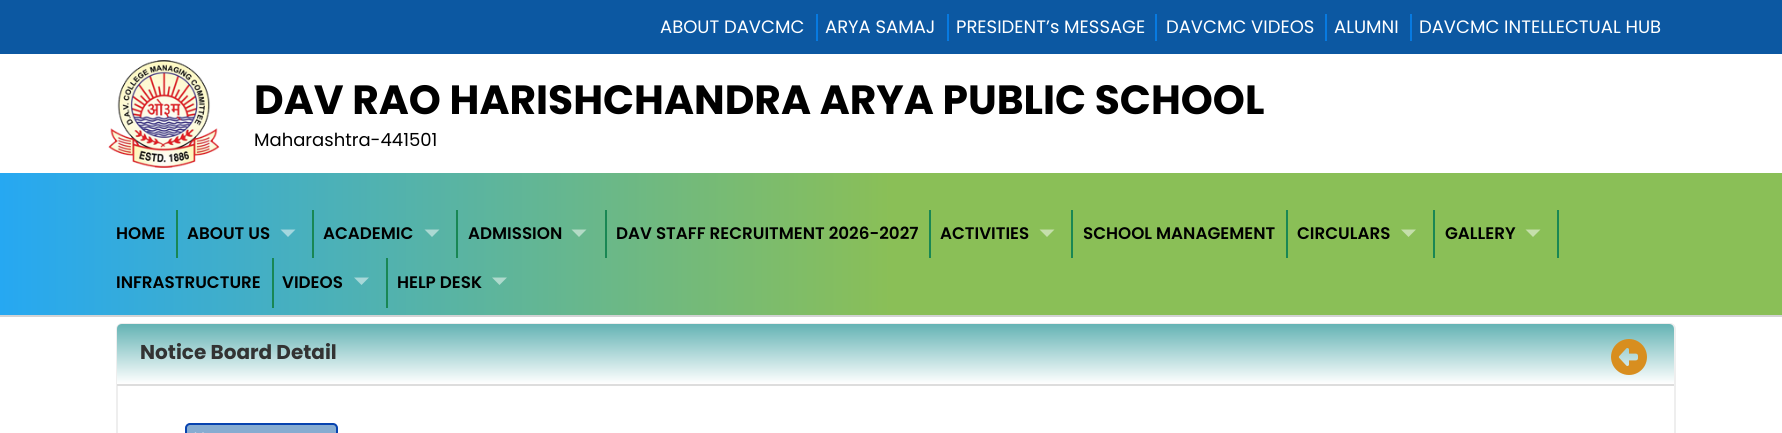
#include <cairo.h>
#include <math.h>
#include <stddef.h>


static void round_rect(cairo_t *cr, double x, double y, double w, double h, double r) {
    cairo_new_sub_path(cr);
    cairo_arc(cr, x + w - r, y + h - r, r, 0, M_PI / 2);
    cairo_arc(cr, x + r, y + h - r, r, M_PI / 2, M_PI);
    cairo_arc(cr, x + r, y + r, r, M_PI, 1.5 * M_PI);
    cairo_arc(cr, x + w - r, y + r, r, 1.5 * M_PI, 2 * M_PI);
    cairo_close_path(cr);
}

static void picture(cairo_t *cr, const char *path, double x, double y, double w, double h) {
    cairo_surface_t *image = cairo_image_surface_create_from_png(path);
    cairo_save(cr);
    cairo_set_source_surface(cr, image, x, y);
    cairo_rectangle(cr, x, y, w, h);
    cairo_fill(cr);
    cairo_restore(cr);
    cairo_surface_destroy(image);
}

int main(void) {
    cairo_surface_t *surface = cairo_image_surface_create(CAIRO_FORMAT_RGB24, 1782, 433);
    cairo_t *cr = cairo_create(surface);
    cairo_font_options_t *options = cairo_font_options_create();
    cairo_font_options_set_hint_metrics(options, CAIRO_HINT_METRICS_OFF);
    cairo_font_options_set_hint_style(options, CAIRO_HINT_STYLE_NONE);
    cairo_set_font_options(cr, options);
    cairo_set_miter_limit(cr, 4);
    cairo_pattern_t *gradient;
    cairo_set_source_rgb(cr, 1, 1, 1);
    cairo_paint(cr);
    cairo_set_source_rgb(cr, 0.047, 0.345, 0.635);
    cairo_rectangle(cr, 0, 0, 1782, 54);
    cairo_fill(cr);
    cairo_set_source_rgb(cr, 0.031, 0.478, 0.882);
    cairo_rectangle(cr, 816, 14, 2, 27);
    cairo_fill(cr);
    cairo_select_font_face(cr, "Poppins", CAIRO_FONT_SLANT_NORMAL, CAIRO_FONT_WEIGHT_NORMAL);
    cairo_set_font_size(cr, 18);
    cairo_set_source_rgb(cr, 1, 1, 1);
    cairo_move_to(cr, 660, 33);
    cairo_show_text(cr, "ABOUT DAVCMC");
    cairo_set_source_rgb(cr, 0.031, 0.478, 0.882);
    cairo_rectangle(cr, 947, 14, 2, 27);
    cairo_fill(cr);
    cairo_set_source_rgb(cr, 1, 1, 1);
    cairo_move_to(cr, 825, 33);
    cairo_show_text(cr, "ARYA SAMAJ");
    cairo_set_source_rgb(cr, 0.031, 0.478, 0.882);
    cairo_rectangle(cr, 1155, 14, 2, 27);
    cairo_fill(cr);
    cairo_set_source_rgb(cr, 1, 1, 1);
    cairo_move_to(cr, 956, 33);
    cairo_show_text(cr, "PRESIDENT’s MESSAGE");
    cairo_set_source_rgb(cr, 0.031, 0.478, 0.882);
    cairo_rectangle(cr, 1325, 14, 2, 27);
    cairo_fill(cr);
    cairo_set_source_rgb(cr, 1, 1, 1);
    cairo_move_to(cr, 1166, 33);
    cairo_show_text(cr, "DAVCMC VIDEOS");
    cairo_set_source_rgb(cr, 0.031, 0.478, 0.882);
    cairo_rectangle(cr, 1410, 14, 2, 27);
    cairo_fill(cr);
    cairo_set_source_rgb(cr, 1, 1, 1);
    cairo_move_to(cr, 1334, 33);
    cairo_show_text(cr, "ALUMNI");
    cairo_move_to(cr, 1419, 33);
    cairo_show_text(cr, "DAVCMC INTELLECTUAL HUB");
    picture(cr, "img1.png", 108, 60, 112, 108);
    cairo_select_font_face(cr, "Poppins", CAIRO_FONT_SLANT_NORMAL, CAIRO_FONT_WEIGHT_BOLD);
    cairo_set_font_size(cr, 40.8);
    cairo_set_source_rgb(cr, 0, 0, 0);
    cairo_move_to(cr, 254, 114);
    cairo_show_text(cr, "DAV RAO HARISHCHANDRA ARYA PUBLIC SCHOOL");
    cairo_select_font_face(cr, "Poppins", CAIRO_FONT_SLANT_NORMAL, CAIRO_FONT_WEIGHT_NORMAL);
    cairo_set_font_size(cr, 18);
    cairo_move_to(cr, 254, 146);
    cairo_show_text(cr, "Maharashtra-441501");
    gradient = cairo_pattern_create_linear(0, 244, 1782, 244);
    cairo_pattern_add_color_stop_rgba(gradient, 0, 0.149, 0.659, 0.949, 1);
    cairo_pattern_add_color_stop_rgba(gradient, 0.5, 0.541, 0.749, 0.341, 1);
    cairo_set_source(cr, gradient);
    cairo_pattern_destroy(gradient);
    cairo_rectangle(cr, 0, 173, 1782, 142);
    cairo_fill(cr);
    cairo_set_source_rgb(cr, 0.827, 0.827, 0.831);
    cairo_rectangle(cr, 0, 315, 1782, 2);
    cairo_fill(cr);
    cairo_set_source_rgb(cr, 0.098, 0.529, 0.329);
    cairo_rectangle(cr, 176, 210, 2, 48);
    cairo_fill(cr);
    cairo_select_font_face(cr, "Poppins SemiBold", CAIRO_FONT_SLANT_NORMAL, CAIRO_FONT_WEIGHT_NORMAL);
    cairo_set_font_size(cr, 16.75);
    cairo_set_source_rgb(cr, 0, 0, 0);
    cairo_move_to(cr, 116, 239);
    cairo_show_text(cr, "HOME");
    cairo_set_source_rgb(cr, 0.098, 0.529, 0.329);
    cairo_rectangle(cr, 312, 210, 2, 48);
    cairo_fill(cr);
    cairo_set_source_rgb(cr, 0, 0, 0);
    cairo_move_to(cr, 187, 239);
    cairo_show_text(cr, "ABOUT US");
    cairo_set_source_rgb(cr, 0.639, 0.843, 0.875);
    cairo_new_path(cr);
    cairo_move_to(cr, 280.5, 229.5);
    cairo_line_to(cr, 295.5, 229.5);
    cairo_line_to(cr, 288, 237);
    cairo_close_path(cr);
    cairo_fill(cr);
    cairo_set_source_rgb(cr, 0.098, 0.529, 0.329);
    cairo_rectangle(cr, 456, 210, 2, 48);
    cairo_fill(cr);
    cairo_set_source_rgb(cr, 0, 0, 0);
    cairo_move_to(cr, 323, 239);
    cairo_show_text(cr, "ACADEMIC");
    cairo_set_source_rgb(cr, 0.671, 0.851, 0.827);
    cairo_new_path(cr);
    cairo_move_to(cr, 424.5, 229.5);
    cairo_line_to(cr, 439.5, 229.5);
    cairo_line_to(cr, 432, 237);
    cairo_close_path(cr);
    cairo_fill(cr);
    cairo_set_source_rgb(cr, 0.098, 0.529, 0.329);
    cairo_rectangle(cr, 605, 210, 2, 48);
    cairo_fill(cr);
    cairo_set_source_rgb(cr, 0, 0, 0);
    cairo_move_to(cr, 468, 239);
    cairo_show_text(cr, "ADMISSION");
    cairo_set_source_rgb(cr, 0.702, 0.859, 0.776);
    cairo_new_path(cr);
    cairo_move_to(cr, 571.5, 229.5);
    cairo_line_to(cr, 586.5, 229.5);
    cairo_line_to(cr, 579, 237);
    cairo_close_path(cr);
    cairo_fill(cr);
    cairo_set_source_rgb(cr, 0.098, 0.529, 0.329);
    cairo_rectangle(cr, 929, 210, 2, 48);
    cairo_fill(cr);
    cairo_set_source_rgb(cr, 0, 0, 0);
    cairo_move_to(cr, 616, 239);
    cairo_show_text(cr, "DAV STAFF RECRUITMENT 2026-2027");
    cairo_set_source_rgb(cr, 0.098, 0.529, 0.329);
    cairo_rectangle(cr, 1071, 210, 2, 48);
    cairo_fill(cr);
    cairo_set_source_rgb(cr, 0, 0, 0);
    cairo_move_to(cr, 940, 239);
    cairo_show_text(cr, "ACTIVITIES");
    cairo_set_source_rgb(cr, 0.773, 0.875, 0.671);
    cairo_new_path(cr);
    cairo_move_to(cr, 1039.5, 229.5);
    cairo_line_to(cr, 1054.5, 229.5);
    cairo_line_to(cr, 1047, 237);
    cairo_close_path(cr);
    cairo_fill(cr);
    cairo_set_source_rgb(cr, 0.098, 0.529, 0.329);
    cairo_rectangle(cr, 1286, 210, 2, 48);
    cairo_fill(cr);
    cairo_set_source_rgb(cr, 0, 0, 0);
    cairo_move_to(cr, 1083, 239);
    cairo_show_text(cr, "SCHOOL MANAGEMENT");
    cairo_set_source_rgb(cr, 0.098, 0.529, 0.329);
    cairo_rectangle(cr, 1433, 210, 2, 48);
    cairo_fill(cr);
    cairo_set_source_rgb(cr, 0, 0, 0);
    cairo_move_to(cr, 1297, 239);
    cairo_show_text(cr, "CIRCULARS");
    cairo_set_source_rgb(cr, 0.773, 0.875, 0.671);
    cairo_new_path(cr);
    cairo_move_to(cr, 1401, 229.5);
    cairo_line_to(cr, 1416, 229.5);
    cairo_line_to(cr, 1408.5, 237);
    cairo_close_path(cr);
    cairo_fill(cr);
    cairo_set_source_rgb(cr, 0.098, 0.529, 0.329);
    cairo_rectangle(cr, 1557, 210, 2, 48);
    cairo_fill(cr);
    cairo_set_source_rgb(cr, 0, 0, 0);
    cairo_move_to(cr, 1445, 239);
    cairo_show_text(cr, "GALLERY");
    cairo_set_source_rgb(cr, 0.773, 0.875, 0.671);
    cairo_new_path(cr);
    cairo_move_to(cr, 1525.5, 229.5);
    cairo_line_to(cr, 1540.5, 229.5);
    cairo_line_to(cr, 1533, 237);
    cairo_close_path(cr);
    cairo_fill(cr);
    cairo_set_source_rgb(cr, 0.098, 0.529, 0.329);
    cairo_rectangle(cr, 272, 258, 2, 50);
    cairo_fill(cr);
    cairo_set_source_rgb(cr, 0, 0, 0);
    cairo_move_to(cr, 116, 288);
    cairo_show_text(cr, "INFRASTRUCTURE");
    cairo_set_source_rgb(cr, 0.098, 0.529, 0.329);
    cairo_rectangle(cr, 386, 258, 2, 50);
    cairo_fill(cr);
    cairo_set_source_rgb(cr, 0, 0, 0);
    cairo_move_to(cr, 282, 288);
    cairo_show_text(cr, "VIDEOS");
    cairo_set_source_rgb(cr, 0.655, 0.847, 0.851);
    cairo_new_path(cr);
    cairo_move_to(cr, 354, 277.5);
    cairo_line_to(cr, 369, 277.5);
    cairo_line_to(cr, 361.5, 285);
    cairo_close_path(cr);
    cairo_fill(cr);
    cairo_set_source_rgb(cr, 0, 0, 0);
    cairo_move_to(cr, 397, 288);
    cairo_show_text(cr, "HELP DESK");
    cairo_set_source_rgb(cr, 0.686, 0.855, 0.804);
    cairo_new_path(cr);
    cairo_move_to(cr, 492, 277.5);
    cairo_line_to(cr, 507, 277.5);
    cairo_line_to(cr, 499.5, 285);
    cairo_close_path(cr);
    cairo_fill(cr);
    round_rect(cr, 117, 324, 1558, 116, 5);
    cairo_set_source_rgb(cr, 0.933, 0.933, 0.933);
    cairo_stroke(cr);
    gradient = cairo_pattern_create_linear(896, 324, 896, 384);
    cairo_pattern_add_color_stop_rgba(gradient, 0, 0.392, 0.702, 0.706, 1);
    cairo_pattern_add_color_stop_rgba(gradient, 1, 1, 1, 1, 1);
    cairo_set_source(cr, gradient);
    cairo_pattern_destroy(gradient);
    cairo_new_path(cr);
    cairo_move_to(cr, 122, 324);
    cairo_line_to(cr, 1669, 324);
    cairo_curve_to(cr, 1672, 324, 1674, 326, 1674, 329);
    cairo_line_to(cr, 1674, 384);
    cairo_line_to(cr, 117, 384);
    cairo_line_to(cr, 117, 329);
    cairo_curve_to(cr, 117, 326, 119, 324, 122, 324);
    cairo_close_path(cr);
    cairo_fill(cr);
    cairo_set_source_rgb(cr, 0.867, 0.867, 0.867);
    cairo_rectangle(cr, 117, 384, 1557, 2);
    cairo_fill(cr);
    cairo_select_font_face(cr, "Poppins", CAIRO_FONT_SLANT_NORMAL, CAIRO_FONT_WEIGHT_BOLD);
    cairo_set_font_size(cr, 20);
    cairo_set_source_rgb(cr, 0.2, 0.2, 0.2);
    cairo_move_to(cr, 140, 359);
    cairo_show_text(cr, "Notice Board Detail");
    picture(cr, "img2.png", 1611, 339, 36, 36);
    cairo_set_source_rgb(cr, 0.525, 0.675, 0.82);
    round_rect(cr, 186, 424, 151, 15, 4);
    cairo_fill_preserve(cr);
    cairo_set_source_rgb(cr, 0.031, 0.263, 0.686);
    cairo_stroke(cr);
    picture(cr, "img3.png", 194, 432, 10, 1);
    cairo_surface_write_to_png(surface, "page.png");
    cairo_font_options_destroy(options);
    cairo_destroy(cr);
    cairo_surface_destroy(surface);
    return 0;
}
